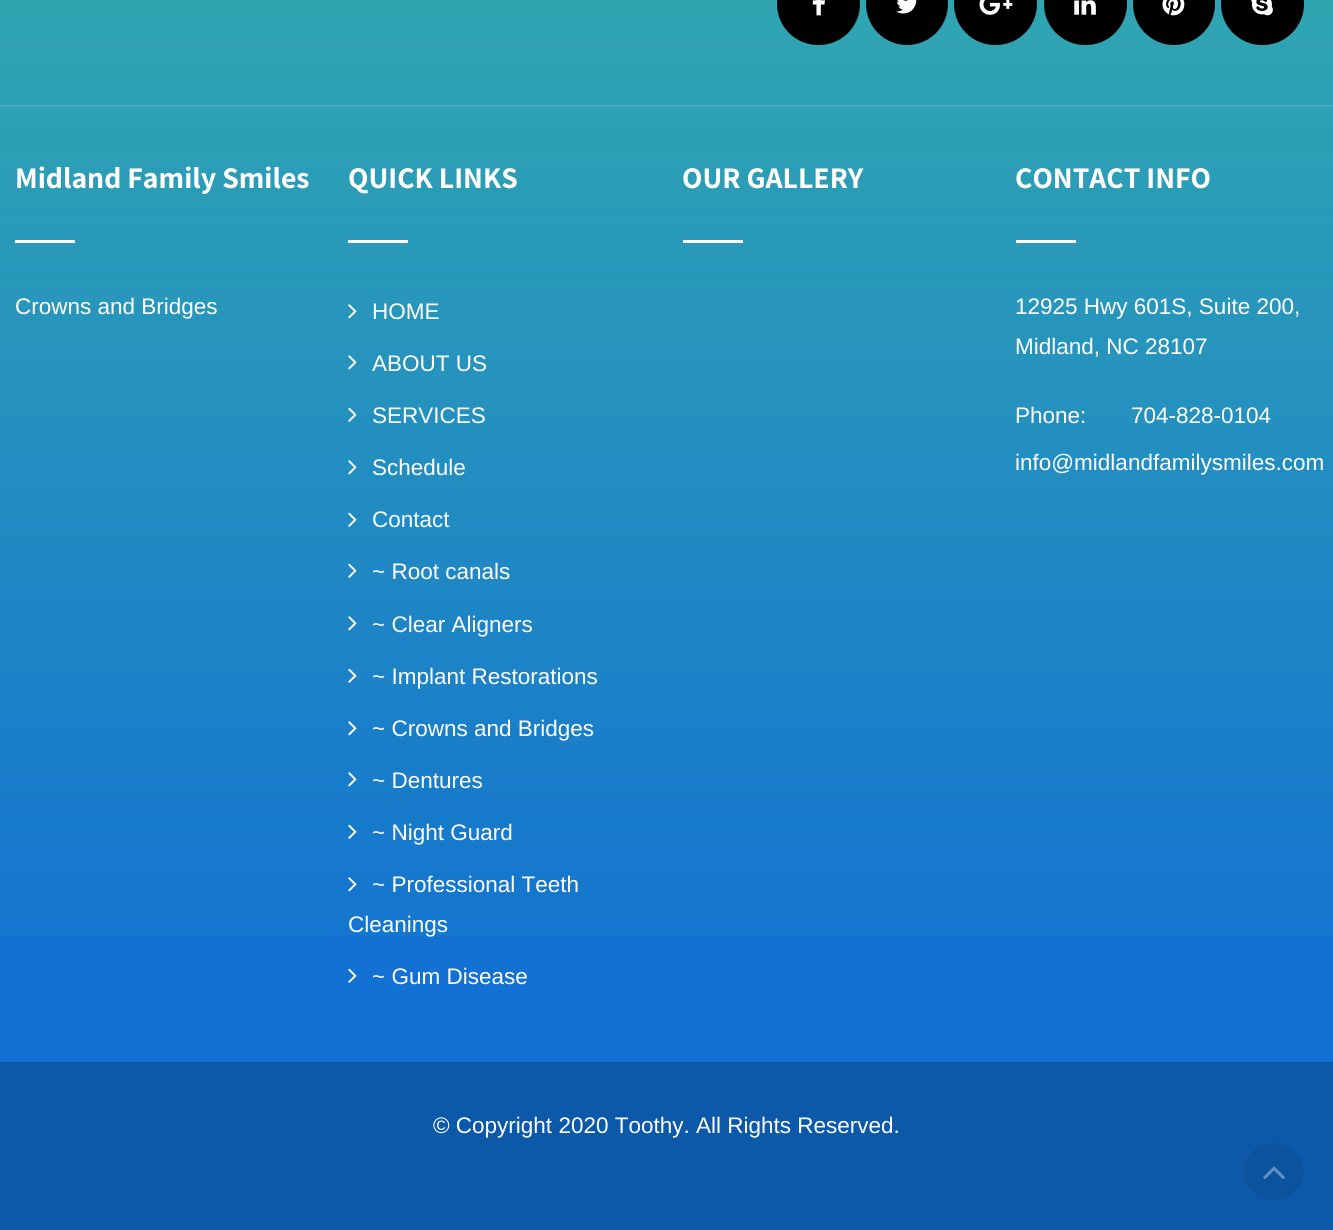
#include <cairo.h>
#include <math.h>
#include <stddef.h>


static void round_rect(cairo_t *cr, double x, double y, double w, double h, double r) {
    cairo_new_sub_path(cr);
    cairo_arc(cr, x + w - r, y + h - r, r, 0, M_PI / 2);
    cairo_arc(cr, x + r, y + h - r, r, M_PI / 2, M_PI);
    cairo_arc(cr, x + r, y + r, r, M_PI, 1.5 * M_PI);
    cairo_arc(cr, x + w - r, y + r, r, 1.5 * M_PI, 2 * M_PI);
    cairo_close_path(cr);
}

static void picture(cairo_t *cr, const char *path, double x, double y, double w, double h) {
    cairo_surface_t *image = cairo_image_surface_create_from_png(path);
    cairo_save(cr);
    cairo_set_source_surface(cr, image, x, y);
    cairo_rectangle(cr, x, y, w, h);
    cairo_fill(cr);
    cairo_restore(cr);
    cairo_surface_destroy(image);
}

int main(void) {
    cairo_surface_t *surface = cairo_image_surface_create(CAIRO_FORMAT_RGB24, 1333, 1230);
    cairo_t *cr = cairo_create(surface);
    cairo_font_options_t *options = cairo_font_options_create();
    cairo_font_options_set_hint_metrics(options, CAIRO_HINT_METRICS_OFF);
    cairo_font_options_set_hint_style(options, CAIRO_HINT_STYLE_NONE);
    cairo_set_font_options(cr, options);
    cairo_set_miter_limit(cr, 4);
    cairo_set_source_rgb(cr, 0.071, 0.443, 0.824);
    cairo_paint(cr);
    picture(cr, "img1.png", 0, 0, 1333, 937);
    cairo_set_source_rgb(cr, 0.286, 0.659, 0.769);
    cairo_rectangle(cr, 0, 105, 1333, 2);
    cairo_fill(cr);
    cairo_set_source_rgb(cr, 0, 0, 0);
    round_rect(cr, 777, -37, 83, 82, 41);
    cairo_fill(cr);
    picture(cr, "img2.png", 812, 0, 13, 16);
    cairo_arc(cr, 907, 4, 41, 0, 2 * M_PI);
    cairo_fill(cr);
    picture(cr, "img3.png", 896, 0, 21, 14);
    round_rect(cr, 954, -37, 83, 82, 41);
    cairo_fill(cr);
    picture(cr, "img4.png", 979, 0, 34, 15);
    round_rect(cr, 1044, -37, 83, 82, 41);
    cairo_fill(cr);
    picture(cr, "img5.png", 1074, 0, 22, 15);
    cairo_arc(cr, 1174, 4, 41, 0, 2 * M_PI);
    cairo_fill(cr);
    picture(cr, "img6.png", 1162, 0, 23, 16);
    round_rect(cr, 1221, -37, 83, 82, 41);
    cairo_fill(cr);
    picture(cr, "img7.png", 1251, 0, 22, 16);
    cairo_select_font_face(cr, "Assistant ExtraLight", CAIRO_FONT_SLANT_NORMAL, CAIRO_FONT_WEIGHT_NORMAL);
    cairo_set_font_size(cr, 30);
    cairo_set_source_rgb(cr, 1, 1, 1);
    cairo_move_to(cr, 15, 188);
    cairo_show_text(cr, "Midland Family Smiles");
    cairo_rectangle(cr, 15, 240, 60, 3);
    cairo_fill(cr);
    cairo_select_font_face(cr, "Liberation Sans", CAIRO_FONT_SLANT_NORMAL, CAIRO_FONT_WEIGHT_NORMAL);
    cairo_set_font_size(cr, 22.5);
    cairo_move_to(cr, 15, 314);
    cairo_show_text(cr, "Crowns and Bridges");
    cairo_select_font_face(cr, "Assistant ExtraLight", CAIRO_FONT_SLANT_NORMAL, CAIRO_FONT_WEIGHT_NORMAL);
    cairo_set_font_size(cr, 30);
    cairo_move_to(cr, 348, 188);
    cairo_show_text(cr, "QUICK LINKS");
    cairo_rectangle(cr, 348, 240, 60, 3);
    cairo_fill(cr);
    picture(cr, "img8.png", 348, 304, 9, 15);
    cairo_select_font_face(cr, "Liberation Sans", CAIRO_FONT_SLANT_NORMAL, CAIRO_FONT_WEIGHT_NORMAL);
    cairo_set_font_size(cr, 22.5);
    cairo_move_to(cr, 372, 319);
    cairo_show_text(cr, "HOME");
    picture(cr, "img9.png", 348, 355, 9, 15);
    cairo_move_to(cr, 372, 371);
    cairo_show_text(cr, "ABOUT US");
    picture(cr, "img10.png", 348, 407, 9, 15);
    cairo_move_to(cr, 372, 423);
    cairo_show_text(cr, "SERVICES");
    picture(cr, "img11.png", 348, 460, 9, 15);
    cairo_move_to(cr, 372, 475);
    cairo_show_text(cr, "Schedule");
    picture(cr, "img12.png", 348, 512, 9, 15);
    cairo_move_to(cr, 372, 527);
    cairo_show_text(cr, "Contact");
    picture(cr, "img13.png", 348, 563, 9, 15);
    cairo_move_to(cr, 372, 579);
    cairo_show_text(cr, "~ Root canals");
    picture(cr, "img14.png", 348, 616, 9, 15);
    cairo_move_to(cr, 372, 632);
    cairo_show_text(cr, "~ Clear Aligners");
    picture(cr, "img15.png", 348, 668, 9, 15);
    cairo_move_to(cr, 372, 684);
    cairo_show_text(cr, "~ Implant Restorations");
    picture(cr, "img16.png", 348, 721, 9, 15);
    cairo_move_to(cr, 372, 736);
    cairo_show_text(cr, "~ Crowns and Bridges");
    picture(cr, "img17.png", 348, 772, 9, 15);
    cairo_move_to(cr, 372, 788);
    cairo_show_text(cr, "~ Dentures");
    picture(cr, "img18.png", 348, 824, 9, 15);
    cairo_move_to(cr, 372, 840);
    cairo_show_text(cr, "~ Night Guard");
    picture(cr, "img19.png", 348, 877, 9, 15);
    cairo_move_to(cr, 372, 892);
    cairo_show_text(cr, "~ Professional Teeth");
    cairo_move_to(cr, 348, 932);
    cairo_show_text(cr, "Cleanings");
    picture(cr, "img20.png", 348, 968, 9, 15);
    cairo_move_to(cr, 372, 984);
    cairo_show_text(cr, "~ Gum Disease");
    cairo_select_font_face(cr, "Assistant ExtraLight", CAIRO_FONT_SLANT_NORMAL, CAIRO_FONT_WEIGHT_NORMAL);
    cairo_set_font_size(cr, 30);
    cairo_move_to(cr, 682, 188);
    cairo_show_text(cr, "OUR GALLERY");
    cairo_rectangle(cr, 683, 240, 60, 3);
    cairo_fill(cr);
    cairo_move_to(cr, 1015, 188);
    cairo_show_text(cr, "CONTACT INFO");
    cairo_rectangle(cr, 1016, 240, 60, 3);
    cairo_fill(cr);
    cairo_select_font_face(cr, "Liberation Sans", CAIRO_FONT_SLANT_NORMAL, CAIRO_FONT_WEIGHT_NORMAL);
    cairo_set_font_size(cr, 22.5);
    cairo_move_to(cr, 1015, 314);
    cairo_show_text(cr, "12925 Hwy 601S, Suite 200,");
    cairo_move_to(cr, 1015, 354);
    cairo_show_text(cr, "Midland, NC 28107");
    cairo_move_to(cr, 1015, 423);
    cairo_show_text(cr, "Phone:");
    cairo_move_to(cr, 1131, 423);
    cairo_show_text(cr, "704-828-0104");
    cairo_move_to(cr, 1015, 470);
    cairo_show_text(cr, "info@midlandfamilysmiles.com");
    cairo_set_source_rgb(cr, 0.051, 0.349, 0.663);
    cairo_rectangle(cr, 0, 1062, 1333, 168);
    cairo_fill(cr);
    cairo_set_source_rgb(cr, 1, 1, 1);
    cairo_move_to(cr, 433, 1133);
    cairo_show_text(cr, "© Copyright 2020 Toothy. All Rights Reserved.");
    cairo_set_source_rgb(cr, 0.047, 0.325, 0.616);
    cairo_new_path(cr);
    cairo_move_to(cr, 1273.5, 1143);
    cairo_curve_to(cr, 1290, 1143, 1303.5, 1156, 1303.5, 1171.5);
    cairo_curve_to(cr, 1303.5, 1187, 1290, 1200, 1273.5, 1200);
    cairo_curve_to(cr, 1257, 1200, 1243.5, 1187, 1243.5, 1171.5);
    cairo_curve_to(cr, 1243.5, 1156, 1257, 1143, 1273.5, 1143);
    cairo_close_path(cr);
    cairo_fill(cr);
    picture(cr, "img21.png", 1263, 1166, 22, 13);
    cairo_surface_write_to_png(surface, "page.png");
    cairo_font_options_destroy(options);
    cairo_destroy(cr);
    cairo_surface_destroy(surface);
    return 0;
}
